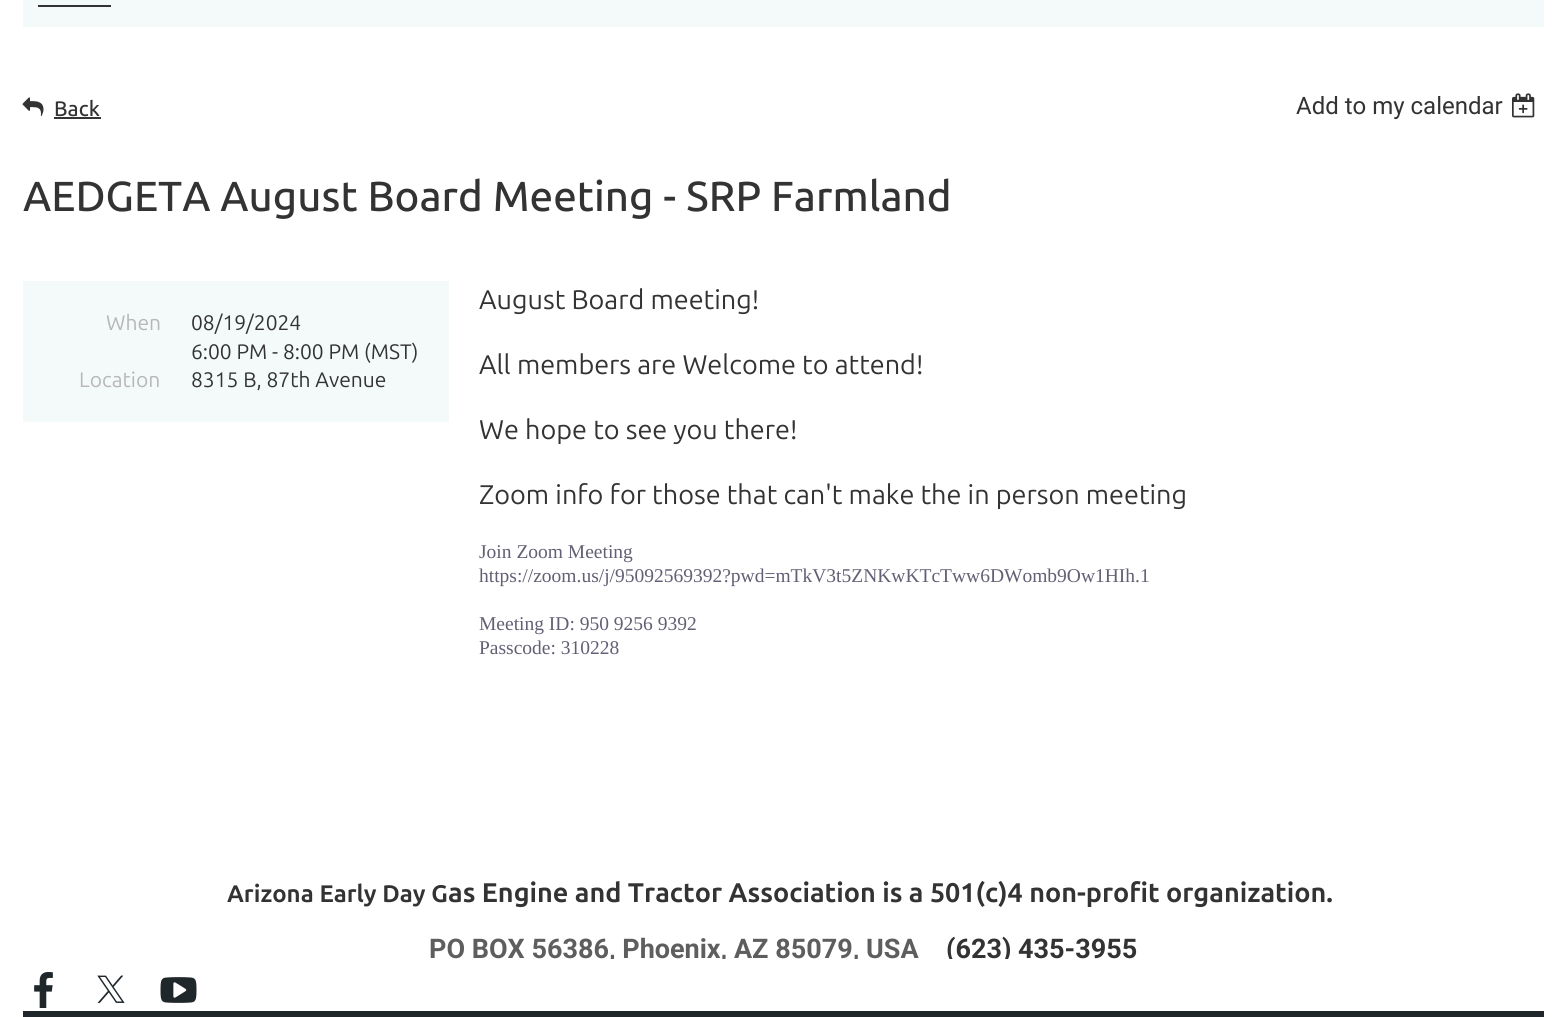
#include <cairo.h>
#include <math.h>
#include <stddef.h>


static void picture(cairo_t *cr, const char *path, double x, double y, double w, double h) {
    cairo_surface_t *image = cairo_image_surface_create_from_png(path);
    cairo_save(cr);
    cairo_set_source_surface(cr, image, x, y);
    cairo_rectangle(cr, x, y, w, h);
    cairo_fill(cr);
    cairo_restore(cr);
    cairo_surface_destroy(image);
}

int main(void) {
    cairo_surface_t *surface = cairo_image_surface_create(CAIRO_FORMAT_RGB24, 1565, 1017);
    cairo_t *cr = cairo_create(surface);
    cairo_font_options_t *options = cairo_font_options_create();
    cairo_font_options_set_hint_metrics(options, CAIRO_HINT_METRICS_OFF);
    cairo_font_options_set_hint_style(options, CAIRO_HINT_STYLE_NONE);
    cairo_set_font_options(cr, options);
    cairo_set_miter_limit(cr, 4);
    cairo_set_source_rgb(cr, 1, 1, 1);
    cairo_paint(cr);
    cairo_set_source_rgb(cr, 0.957, 0.973, 0.98);
    cairo_rectangle(cr, 23, 0, 1521, 27);
    cairo_fill(cr);
    cairo_set_source_rgb(cr, 0.2, 0.2, 0.2);
    cairo_rectangle(cr, 38, 5, 73, 2);
    cairo_fill(cr);
    picture(cr, "img1.png", 22, 97, 22, 20);
    cairo_select_font_face(cr, "Ubuntu Medium", CAIRO_FONT_SLANT_NORMAL, CAIRO_FONT_WEIGHT_NORMAL);
    cairo_set_font_size(cr, 21);
    cairo_move_to(cr, 54, 116);
    cairo_show_text(cr, "Back");
    cairo_rectangle(cr, 54, 117, 47, 2);
    cairo_fill(cr);
    cairo_select_font_face(cr, "Roboto", CAIRO_FONT_SLANT_NORMAL, CAIRO_FONT_WEIGHT_NORMAL);
    cairo_set_font_size(cr, 24);
    cairo_move_to(cr, 1296, 114);
    cairo_show_text(cr, "Add to my calendar");
    picture(cr, "img2.png", 1512, 93, 23, 25);
    cairo_select_font_face(cr, "Ubuntu Medium", CAIRO_FONT_SLANT_NORMAL, CAIRO_FONT_WEIGHT_NORMAL);
    cairo_set_font_size(cr, 42);
    cairo_move_to(cr, 23, 211);
    cairo_show_text(cr, "AEDGETA August Board Meeting - SRP Farmland");
    cairo_set_source_rgb(cr, 0.957, 0.973, 0.98);
    cairo_rectangle(cr, 23, 281, 426, 141);
    cairo_fill(cr);
    cairo_select_font_face(cr, "Ubuntu", CAIRO_FONT_SLANT_NORMAL, CAIRO_FONT_WEIGHT_NORMAL);
    cairo_set_font_size(cr, 21);
    cairo_set_source_rgb(cr, 0.718, 0.718, 0.718);
    cairo_move_to(cr, 106, 330);
    cairo_show_text(cr, "When");
    cairo_set_source_rgb(cr, 0.2, 0.2, 0.2);
    cairo_move_to(cr, 191, 330);
    cairo_show_text(cr, "08/19/2024");
    cairo_move_to(cr, 191, 359);
    cairo_show_text(cr, "6:00 PM - 8:00 PM (MST)");
    cairo_set_source_rgb(cr, 0.718, 0.718, 0.718);
    cairo_move_to(cr, 79, 387);
    cairo_show_text(cr, "Location");
    cairo_set_source_rgb(cr, 0.2, 0.2, 0.2);
    cairo_move_to(cr, 191, 387);
    cairo_show_text(cr, "8315 B, 87th Avenue");
    cairo_set_font_size(cr, 27);
    cairo_move_to(cr, 479, 309);
    cairo_show_text(cr, "August Board meeting!");
    cairo_move_to(cr, 479, 374);
    cairo_show_text(cr, "All members are Welcome to attend!");
    cairo_move_to(cr, 479, 439);
    cairo_show_text(cr, "We hope to see you there!");
    cairo_move_to(cr, 479, 504);
    cairo_show_text(cr, "Zoom info for those that can't make the in person meeting");
    cairo_select_font_face(cr, "Liberation Serif", CAIRO_FONT_SLANT_NORMAL, CAIRO_FONT_WEIGHT_NORMAL);
    cairo_set_font_size(cr, 19.5);
    cairo_set_source_rgb(cr, 0.38, 0.376, 0.455);
    cairo_move_to(cr, 479, 558);
    cairo_show_text(cr, "Join Zoom Meeting");
    cairo_move_to(cr, 479, 582);
    cairo_show_text(cr, "https://zoom.us/j/95092569392?pwd=mTkV3t5ZNKwKTcTww6DWomb9Ow1HIh.1");
    cairo_move_to(cr, 479, 630);
    cairo_show_text(cr, "Meeting ID: 950 9256 9392");
    cairo_move_to(cr, 479, 654);
    cairo_show_text(cr, "Passcode: 310228");
    cairo_select_font_face(cr, "Ubuntu", CAIRO_FONT_SLANT_NORMAL, CAIRO_FONT_WEIGHT_BOLD);
    cairo_set_font_size(cr, 24);
    cairo_set_source_rgb(cr, 0.2, 0.2, 0.2);
    cairo_move_to(cr, 227, 902);
    cairo_show_text(cr, "Arizona Early Day G");
    cairo_set_font_size(cr, 27);
    cairo_move_to(cr, 448, 902);
    cairo_show_text(cr, "as Engine and Tractor Association is a 501(c)4 non-profit organization.");
    cairo_save(cr);
    cairo_rectangle(cr, 23, 876, 1521, 83);
    cairo_clip(cr);
    cairo_select_font_face(cr, "Roboto", CAIRO_FONT_SLANT_NORMAL, CAIRO_FONT_WEIGHT_BOLD);
    cairo_set_source_rgb(cr, 0.369, 0.369, 0.369);
    cairo_move_to(cr, 429, 958);
    cairo_show_text(cr, "PO BOX 56386, Phoenix, AZ 85079, USA");
    cairo_set_source_rgb(cr, 0.2, 0.2, 0.2);
    cairo_move_to(cr, 946, 958);
    cairo_show_text(cr, "(623) 435-3955");
    cairo_restore(cr);
    picture(cr, "img3.png", 34, 972, 19, 36);
    picture(cr, "img4.png", 97, 975, 28, 28);
    picture(cr, "img5.png", 160, 977, 37, 26);
    cairo_set_source_rgb(cr, 0.122, 0.153, 0.169);
    cairo_rectangle(cr, 23, 1011, 1521, 6);
    cairo_fill(cr);
    cairo_surface_write_to_png(surface, "page.png");
    cairo_font_options_destroy(options);
    cairo_destroy(cr);
    cairo_surface_destroy(surface);
    return 0;
}
